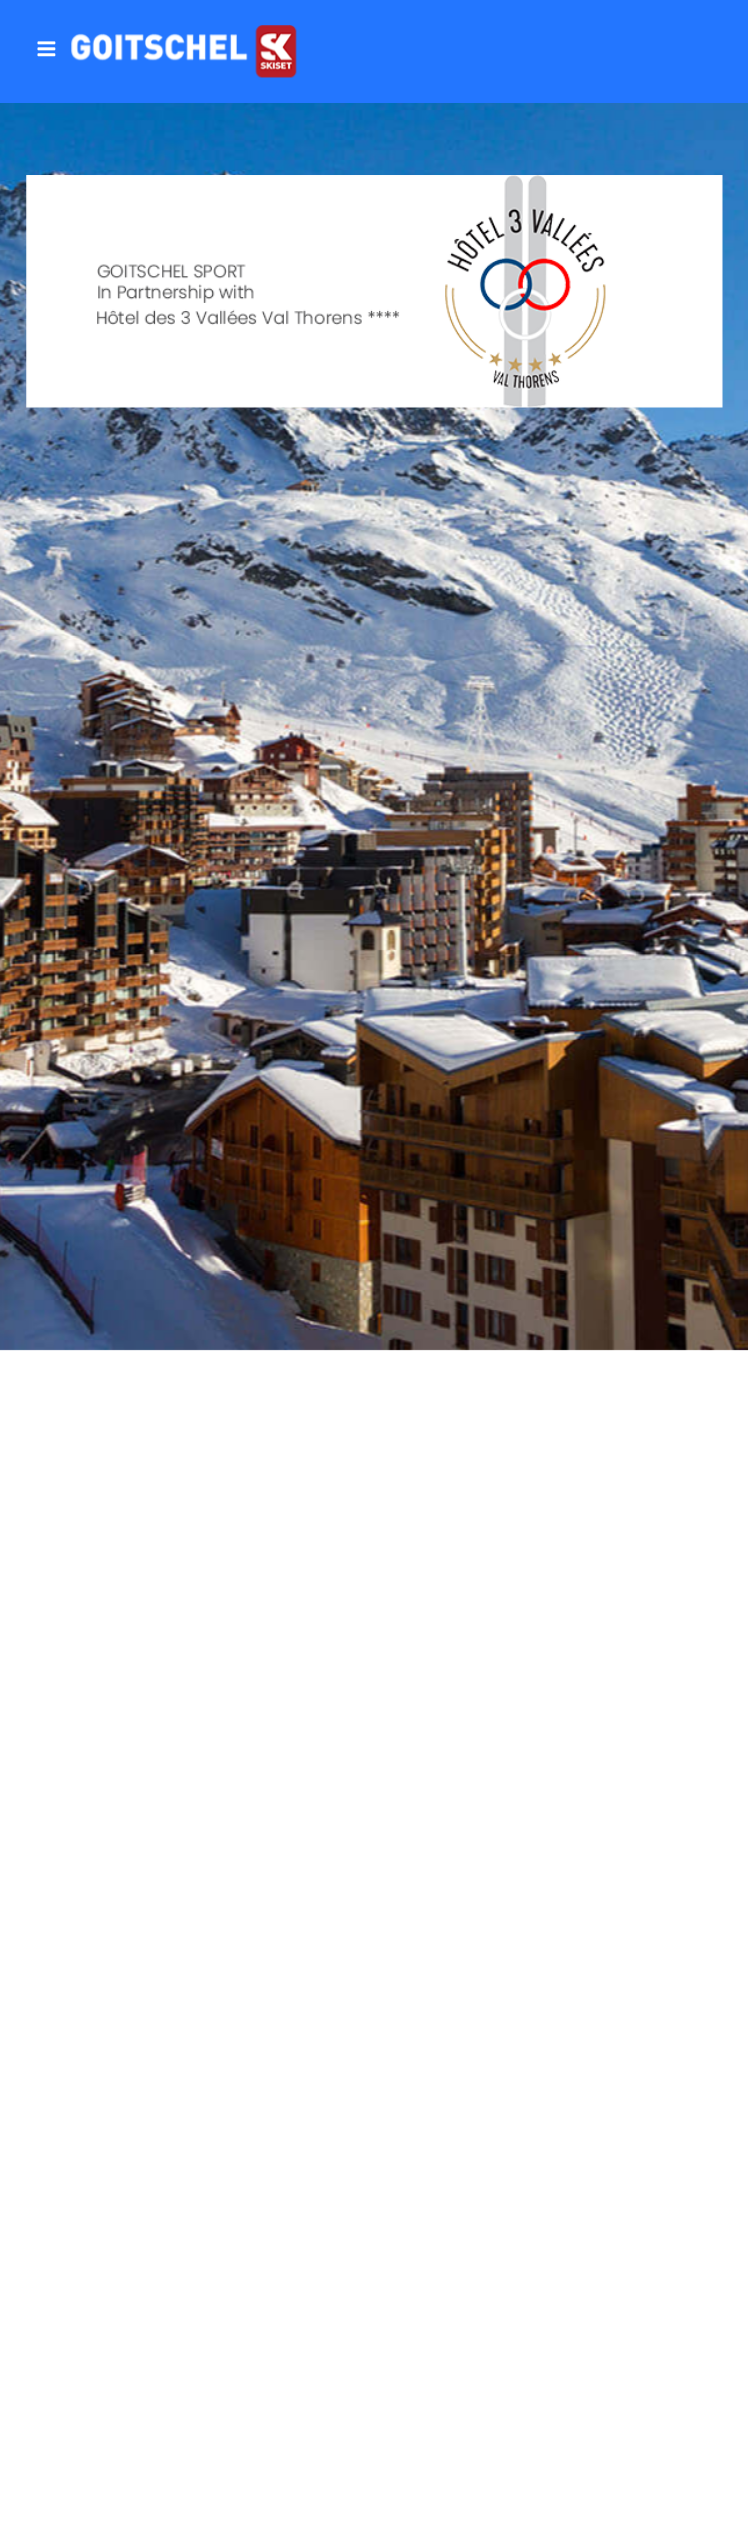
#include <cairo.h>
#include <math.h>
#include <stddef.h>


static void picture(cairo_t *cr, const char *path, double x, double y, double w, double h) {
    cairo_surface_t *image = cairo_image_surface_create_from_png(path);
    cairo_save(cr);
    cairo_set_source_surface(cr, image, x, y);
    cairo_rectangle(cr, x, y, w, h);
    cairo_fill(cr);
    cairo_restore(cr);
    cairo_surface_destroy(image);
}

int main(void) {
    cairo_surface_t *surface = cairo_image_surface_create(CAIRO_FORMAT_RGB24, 748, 2538);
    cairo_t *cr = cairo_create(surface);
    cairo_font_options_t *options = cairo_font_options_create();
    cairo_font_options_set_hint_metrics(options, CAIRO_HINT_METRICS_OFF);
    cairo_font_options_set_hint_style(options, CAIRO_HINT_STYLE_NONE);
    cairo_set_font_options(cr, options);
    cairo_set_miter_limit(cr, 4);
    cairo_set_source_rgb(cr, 1, 1, 1);
    cairo_paint(cr);
    cairo_set_source_rgb(cr, 0.137, 0.463, 1);
    cairo_rectangle(cr, 0, 0, 748, 103);
    cairo_fill(cr);
    picture(cr, "img1.png", 37, 41, 19, 16);
    picture(cr, "img2.png", 71, 25, 226, 53);
    picture(cr, "img3.png", 0, 103, 748, 1248);
    picture(cr, "img4.png", 26, 175, 697, 233);
    cairo_surface_write_to_png(surface, "page.png");
    cairo_font_options_destroy(options);
    cairo_destroy(cr);
    cairo_surface_destroy(surface);
    return 0;
}
